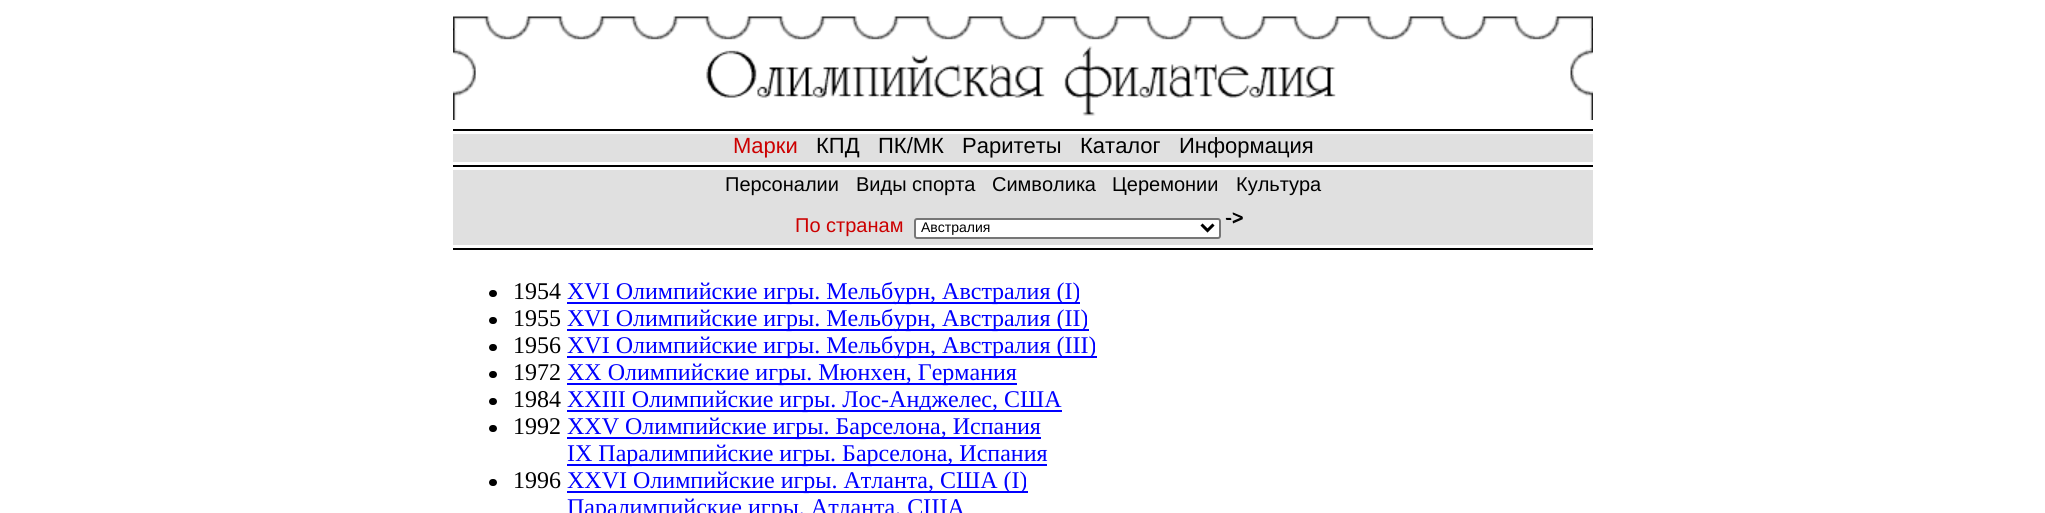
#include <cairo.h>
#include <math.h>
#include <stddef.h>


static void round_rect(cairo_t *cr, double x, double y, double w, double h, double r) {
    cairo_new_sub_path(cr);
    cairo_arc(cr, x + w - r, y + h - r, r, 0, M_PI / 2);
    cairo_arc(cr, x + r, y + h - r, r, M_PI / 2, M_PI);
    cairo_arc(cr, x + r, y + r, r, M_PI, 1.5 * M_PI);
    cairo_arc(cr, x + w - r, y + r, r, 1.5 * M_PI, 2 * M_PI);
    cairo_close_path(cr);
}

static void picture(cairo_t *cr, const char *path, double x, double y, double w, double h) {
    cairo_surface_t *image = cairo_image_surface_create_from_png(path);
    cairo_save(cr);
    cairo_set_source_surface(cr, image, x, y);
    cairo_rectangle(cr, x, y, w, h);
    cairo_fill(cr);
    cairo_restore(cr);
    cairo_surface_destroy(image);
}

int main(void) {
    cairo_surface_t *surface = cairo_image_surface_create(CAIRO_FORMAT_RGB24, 2045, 513);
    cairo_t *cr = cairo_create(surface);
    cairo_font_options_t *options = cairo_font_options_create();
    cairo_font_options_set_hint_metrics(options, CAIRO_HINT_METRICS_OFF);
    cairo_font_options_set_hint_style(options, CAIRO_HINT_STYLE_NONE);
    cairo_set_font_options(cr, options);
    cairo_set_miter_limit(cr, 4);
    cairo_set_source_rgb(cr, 1, 1, 1);
    cairo_paint(cr);
    picture(cr, "img1.png", 453, 16, 1140, 104);
    cairo_set_source_rgb(cr, 0, 0, 0);
    cairo_rectangle(cr, 453, 129, 1140, 2);
    cairo_fill(cr);
    cairo_set_source_rgb(cr, 0.878, 0.878, 0.878);
    cairo_rectangle(cr, 453, 134, 1140, 28);
    cairo_fill(cr);
    cairo_select_font_face(cr, "Liberation Sans", CAIRO_FONT_SLANT_NORMAL, CAIRO_FONT_WEIGHT_NORMAL);
    cairo_set_font_size(cr, 22);
    cairo_set_source_rgb(cr, 0.8, 0, 0);
    cairo_move_to(cr, 733, 153);
    cairo_show_text(cr, "Марки");
    cairo_set_source_rgb(cr, 0, 0, 0);
    cairo_move_to(cr, 816, 153);
    cairo_show_text(cr, "КПД");
    cairo_move_to(cr, 878, 153);
    cairo_show_text(cr, "ПК/МК");
    cairo_move_to(cr, 962, 153);
    cairo_show_text(cr, "Раритеты");
    cairo_move_to(cr, 1080, 153);
    cairo_show_text(cr, "Каталог");
    cairo_move_to(cr, 1179, 153);
    cairo_show_text(cr, "Информация");
    cairo_rectangle(cr, 453, 165, 1140, 2);
    cairo_fill(cr);
    cairo_set_source_rgb(cr, 0.878, 0.878, 0.878);
    cairo_rectangle(cr, 453, 170, 1140, 75);
    cairo_fill(cr);
    cairo_set_font_size(cr, 20);
    cairo_set_source_rgb(cr, 0, 0, 0);
    cairo_move_to(cr, 725, 191);
    cairo_show_text(cr, "Персоналии");
    cairo_move_to(cr, 856, 191);
    cairo_show_text(cr, "Виды спорта");
    cairo_move_to(cr, 992, 191);
    cairo_show_text(cr, "Символика");
    cairo_move_to(cr, 1112, 191);
    cairo_show_text(cr, "Церемонии");
    cairo_move_to(cr, 1236, 191);
    cairo_show_text(cr, "Культура");
    cairo_set_source_rgb(cr, 0.8, 0, 0);
    cairo_move_to(cr, 795, 232);
    cairo_show_text(cr, "По странам");
    cairo_set_source_rgb(cr, 1, 1, 1);
    round_rect(cr, 915, 219, 305, 19, 2);
    cairo_fill_preserve(cr);
    cairo_set_source_rgb(cr, 0.463, 0.463, 0.463);
    cairo_stroke(cr);
    cairo_new_path(cr);
    cairo_move_to(cr, 1201.5, 224.5);
    cairo_line_to(cr, 1207.5, 230.5);
    cairo_line_to(cr, 1213.5, 224.5);
    cairo_set_source_rgb(cr, 0, 0, 0);
    cairo_set_line_width(cr, 3);
    cairo_stroke(cr);
    cairo_set_font_size(cr, 14);
    cairo_move_to(cr, 921, 232);
    cairo_show_text(cr, "Австралия");
    picture(cr, "img2.png", 1226, 213, 17, 11);
    cairo_set_font_size(cr, 20);
    cairo_move_to(cr, 1225, 224);
    cairo_show_text(cr, "->");
    cairo_rectangle(cr, 453, 248, 1140, 2);
    cairo_fill(cr);
    round_rect(cr, 489, 290, 8, 7, 3.5);
    cairo_fill(cr);
    cairo_select_font_face(cr, "Liberation Serif", CAIRO_FONT_SLANT_NORMAL, CAIRO_FONT_WEIGHT_NORMAL);
    cairo_set_font_size(cr, 24);
    cairo_move_to(cr, 513, 299);
    cairo_show_text(cr, "1954");
    cairo_set_source_rgb(cr, 0, 0, 1);
    cairo_rectangle(cr, 567, 302, 513, 2);
    cairo_fill(cr);
    cairo_move_to(cr, 567, 299);
    cairo_show_text(cr, "XVI Олимпийские игры. Мельбурн, Австралия (I)");
    cairo_set_source_rgb(cr, 0, 0, 0);
    round_rect(cr, 489, 317, 8, 7, 3.5);
    cairo_fill(cr);
    cairo_move_to(cr, 513, 326);
    cairo_show_text(cr, "1955");
    cairo_set_source_rgb(cr, 0, 0, 1);
    cairo_rectangle(cr, 567, 329, 522, 2);
    cairo_fill(cr);
    cairo_move_to(cr, 567, 326);
    cairo_show_text(cr, "XVI Олимпийские игры. Мельбурн, Австралия (II)");
    cairo_set_source_rgb(cr, 0, 0, 0);
    round_rect(cr, 489, 344, 8, 7, 3.5);
    cairo_fill(cr);
    cairo_move_to(cr, 513, 353);
    cairo_show_text(cr, "1956");
    cairo_set_source_rgb(cr, 0, 0, 1);
    cairo_rectangle(cr, 567, 356, 530, 2);
    cairo_fill(cr);
    cairo_move_to(cr, 567, 353);
    cairo_show_text(cr, "XVI Олимпийские игры. Мельбурн, Австралия (III)");
    cairo_set_source_rgb(cr, 0, 0, 0);
    round_rect(cr, 489, 371, 8, 7, 3.5);
    cairo_fill(cr);
    cairo_move_to(cr, 513, 380);
    cairo_show_text(cr, "1972");
    cairo_set_source_rgb(cr, 0, 0, 1);
    cairo_rectangle(cr, 567, 383, 450, 2);
    cairo_fill(cr);
    cairo_move_to(cr, 567, 380);
    cairo_show_text(cr, "XX Олимпийские игры. Мюнхен, Германия");
    cairo_set_source_rgb(cr, 0, 0, 0);
    round_rect(cr, 489, 398, 8, 7, 3.5);
    cairo_fill(cr);
    cairo_move_to(cr, 513, 407);
    cairo_show_text(cr, "1984");
    cairo_set_source_rgb(cr, 0, 0, 1);
    cairo_rectangle(cr, 567, 410, 495, 2);
    cairo_fill(cr);
    cairo_move_to(cr, 567, 407);
    cairo_show_text(cr, "XXIII Олимпийские игры. Лос-Анджелес, США");
    cairo_set_source_rgb(cr, 0, 0, 0);
    round_rect(cr, 489, 425, 8, 7, 3.5);
    cairo_fill(cr);
    cairo_move_to(cr, 513, 434);
    cairo_show_text(cr, "1992");
    cairo_set_source_rgb(cr, 0, 0, 1);
    cairo_rectangle(cr, 567, 437, 474, 2);
    cairo_fill(cr);
    cairo_move_to(cr, 567, 434);
    cairo_show_text(cr, "XXV Олимпийские игры. Барселона, Испания");
    cairo_rectangle(cr, 567, 464, 480, 2);
    cairo_fill(cr);
    cairo_move_to(cr, 567, 461);
    cairo_show_text(cr, "IX Паралимпийские игры. Барселона, Испания");
    cairo_set_source_rgb(cr, 0, 0, 0);
    round_rect(cr, 489, 479, 8, 7, 3.5);
    cairo_fill(cr);
    cairo_move_to(cr, 513, 488);
    cairo_show_text(cr, "1996");
    cairo_set_source_rgb(cr, 0, 0, 1);
    cairo_rectangle(cr, 567, 491, 461, 2);
    cairo_fill(cr);
    cairo_move_to(cr, 567, 488);
    cairo_show_text(cr, "XXVI Олимпийские игры. Атланта, США (I)");
    cairo_move_to(cr, 567, 515);
    cairo_show_text(cr, "Паралимпийские игры. Атланта, США");
    cairo_surface_write_to_png(surface, "page.png");
    cairo_font_options_destroy(options);
    cairo_destroy(cr);
    cairo_surface_destroy(surface);
    return 0;
}
